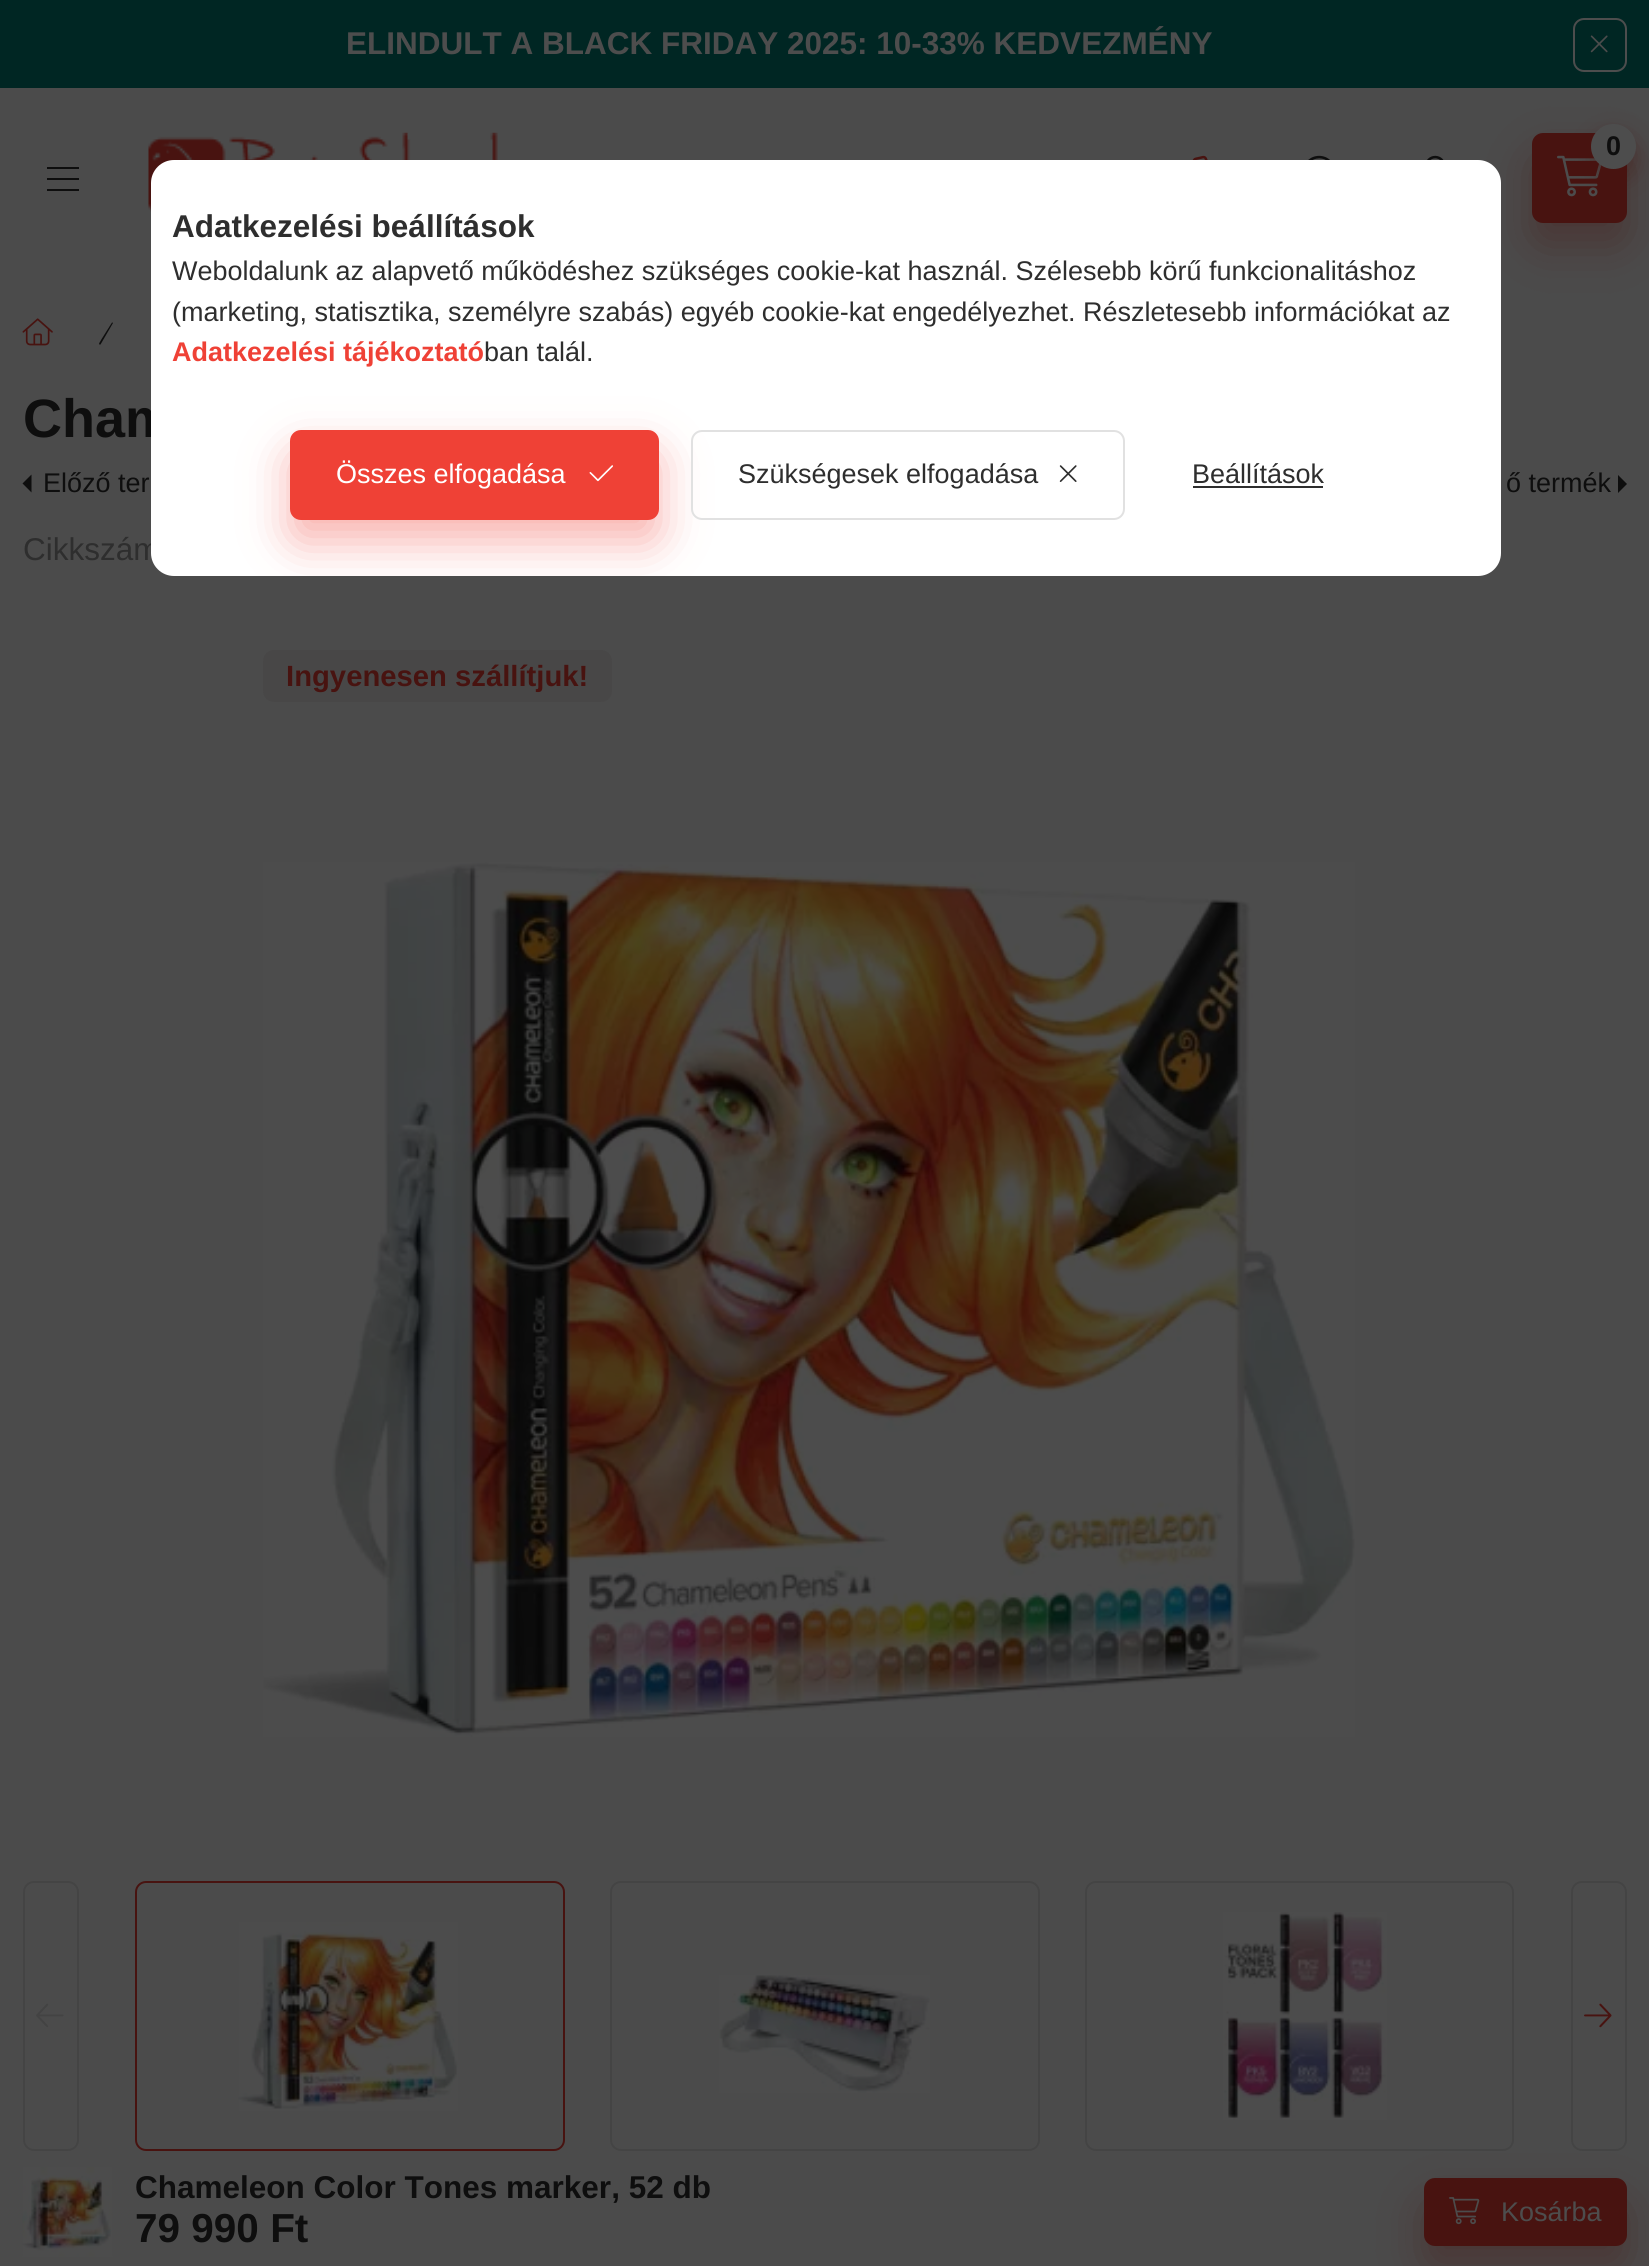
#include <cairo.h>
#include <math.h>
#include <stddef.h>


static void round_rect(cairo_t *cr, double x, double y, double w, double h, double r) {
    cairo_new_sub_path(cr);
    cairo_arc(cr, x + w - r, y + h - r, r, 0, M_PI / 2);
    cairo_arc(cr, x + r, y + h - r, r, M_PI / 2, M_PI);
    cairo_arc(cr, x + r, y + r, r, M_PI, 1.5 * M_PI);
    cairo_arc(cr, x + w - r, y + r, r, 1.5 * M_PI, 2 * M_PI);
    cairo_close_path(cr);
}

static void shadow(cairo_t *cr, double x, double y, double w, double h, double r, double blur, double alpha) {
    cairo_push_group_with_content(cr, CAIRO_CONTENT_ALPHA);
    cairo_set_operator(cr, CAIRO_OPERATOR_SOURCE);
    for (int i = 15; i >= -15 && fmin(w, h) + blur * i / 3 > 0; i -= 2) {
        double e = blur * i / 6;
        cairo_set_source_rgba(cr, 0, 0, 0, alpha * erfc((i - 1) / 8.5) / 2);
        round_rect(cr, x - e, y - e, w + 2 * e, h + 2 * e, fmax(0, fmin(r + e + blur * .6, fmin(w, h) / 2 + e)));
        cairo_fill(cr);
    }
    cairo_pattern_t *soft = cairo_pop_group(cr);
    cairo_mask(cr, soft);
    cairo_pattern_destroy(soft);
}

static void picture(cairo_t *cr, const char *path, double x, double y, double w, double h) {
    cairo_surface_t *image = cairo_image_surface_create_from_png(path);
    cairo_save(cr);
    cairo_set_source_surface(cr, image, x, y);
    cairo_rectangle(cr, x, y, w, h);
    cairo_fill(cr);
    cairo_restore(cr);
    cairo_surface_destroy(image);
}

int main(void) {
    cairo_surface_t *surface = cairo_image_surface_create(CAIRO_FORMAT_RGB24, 1649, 2266);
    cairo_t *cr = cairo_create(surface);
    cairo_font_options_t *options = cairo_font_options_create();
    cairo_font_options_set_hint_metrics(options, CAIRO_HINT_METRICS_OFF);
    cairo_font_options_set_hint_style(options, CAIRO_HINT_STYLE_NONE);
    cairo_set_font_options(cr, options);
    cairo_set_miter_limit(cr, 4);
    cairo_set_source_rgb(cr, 0.294, 0.294, 0.294);
    cairo_paint(cr);
    cairo_set_source_rgb(cr, 0.282, 0.078, 0.063);
    shadow(cr, 1532, 155, 95, 90, 11, 22.5, 0.4);
    cairo_set_source_rgb(cr, 0, 0.149, 0.137);
    cairo_rectangle(cr, 0, 0, 1649, 88);
    cairo_fill(cr);
    cairo_select_font_face(cr, "Liberation Sans", CAIRO_FONT_SLANT_NORMAL, CAIRO_FONT_WEIGHT_BOLD);
    cairo_set_font_size(cr, 31.5);
    cairo_set_source_rgb(cr, 0.302, 0.302, 0.302);
    cairo_move_to(cr, 346, 54);
    cairo_show_text(cr, "ELINDULT A BLACK FRIDAY 2025: 10-33% KEDVEZMÉNY");
    round_rect(cr, 1574, 19, 52, 52, 10);
    cairo_stroke(cr);
    picture(cr, "img1.png", 1590, 35, 18, 18);
    picture(cr, "img2.png", 148, 132, 350, 80);
    picture(cr, "img3.png", 1192, 155, 16, 5);
    cairo_set_source_rgb(cr, 0.055, 0.055, 0.055);
    cairo_rectangle(cr, 47, 167, 32, 2);
    cairo_fill(cr);
    cairo_rectangle(cr, 47, 178, 32, 2);
    cairo_fill(cr);
    cairo_rectangle(cr, 47, 189, 32, 2);
    cairo_fill(cr);
    cairo_set_source_rgb(cr, 0.282, 0.078, 0.063);
    round_rect(cr, 1532, 133, 95, 90, 11);
    cairo_fill(cr);
    picture(cr, "img4.png", 1557, 155, 45, 42);
    cairo_set_source_rgb(cr, 0.282, 0.078, 0.063);
    shadow(cr, 1591, 135, 45, 45, 22.5, 11, 0.4);
    cairo_set_source_rgb(cr, 0.302, 0.302, 0.302);
    cairo_arc(cr, 1613.5, 146.5, 22.5, 0, 2 * M_PI);
    cairo_fill(cr);
    cairo_set_font_size(cr, 27);
    cairo_set_source_rgb(cr, 0.055, 0.055, 0.055);
    cairo_move_to(cr, 1606, 155);
    cairo_show_text(cr, "0");
    picture(cr, "img5.png", 1308, 155, 22, 5);
    picture(cr, "img6.png", 1427, 155, 17, 5);
    picture(cr, "img7.png", 22, 318, 31, 28);
    cairo_new_path(cr);
    cairo_move_to(cr, 112.5, 322.5);
    cairo_line_to(cr, 112, 322.5);
    cairo_line_to(cr, 101, 340);
    cairo_curve_to(cr, 100.5, 341.5, 98, 344, 99.5, 344.5);
    cairo_line_to(cr, 100.5, 344.5);
    cairo_line_to(cr, 113, 323);
    cairo_close_path(cr);
    cairo_fill(cr);
    cairo_set_font_size(cr, 54);
    cairo_move_to(cr, 23, 437);
    cairo_show_text(cr, "Cham");
    cairo_new_path(cr);
    cairo_move_to(cr, 31.5, 492.5);
    cairo_line_to(cr, 31.5, 474.5);
    cairo_line_to(cr, 22.5, 483.5);
    cairo_close_path(cr);
    cairo_fill(cr);
    cairo_select_font_face(cr, "Liberation Sans", CAIRO_FONT_SLANT_NORMAL, CAIRO_FONT_WEIGHT_NORMAL);
    cairo_set_font_size(cr, 27);
    cairo_move_to(cr, 43, 492);
    cairo_show_text(cr, "Előző ter");
    cairo_move_to(cr, 1506, 492);
    cairo_show_text(cr, "ő termék");
    cairo_new_path(cr);
    cairo_move_to(cr, 1618, 493);
    cairo_line_to(cr, 1618, 475);
    cairo_line_to(cr, 1627, 484);
    cairo_close_path(cr);
    cairo_fill(cr);
    cairo_set_font_size(cr, 31.5);
    cairo_set_source_rgb(cr, 0.18, 0.18, 0.18);
    cairo_move_to(cr, 23, 560);
    cairo_show_text(cr, "Cikkszám");
    cairo_set_source_rgb(cr, 0.282, 0.278, 0.278);
    round_rect(cr, 263, 650, 349, 52, 11);
    cairo_fill(cr);
    cairo_select_font_face(cr, "Liberation Sans", CAIRO_FONT_SLANT_NORMAL, CAIRO_FONT_WEIGHT_BOLD);
    cairo_set_font_size(cr, 29.25);
    cairo_set_source_rgb(cr, 0.282, 0.078, 0.063);
    cairo_move_to(cr, 286, 686);
    cairo_show_text(cr, "Ingyenesen szállítjuk!");
    picture(cr, "img8.png", 263, 862, 1092, 875);
    round_rect(cr, 24, 1882, 54, 268, 10);
    cairo_set_source_rgb(cr, 0.267, 0.267, 0.267);
    cairo_stroke(cr);
    picture(cr, "img9.png", 36, 2003, 28, 25);
    round_rect(cr, 136, 1882, 428, 268, 10);
    cairo_set_source_rgb(cr, 0.282, 0.078, 0.063);
    cairo_stroke(cr);
    picture(cr, "img10.png", 238, 1922, 220, 189);
    round_rect(cr, 611, 1882, 428, 268, 10);
    cairo_set_source_rgb(cr, 0.267, 0.267, 0.267);
    cairo_stroke(cr);
    picture(cr, "img11.png", 719, 1975, 211, 118);
    round_rect(cr, 1086, 1882, 427, 268, 10);
    cairo_stroke(cr);
    picture(cr, "img12.png", 1223, 1912, 164, 208);
    round_rect(cr, 1572, 1882, 54, 268, 10);
    cairo_stroke(cr);
    picture(cr, "img13.png", 1584, 2003, 28, 25);
    picture(cr, "img14.png", 22, 2167, 91, 90);
    cairo_set_font_size(cr, 31.5);
    cairo_set_source_rgb(cr, 0.055, 0.055, 0.055);
    cairo_move_to(cr, 135, 2198);
    cairo_show_text(cr, "Chameleon Color Tones marker, 52 db");
    cairo_set_font_size(cr, 40.5);
    cairo_move_to(cr, 135, 2242);
    cairo_show_text(cr, "79 990 Ft");
    cairo_set_source_rgb(cr, 0.282, 0.078, 0.063);
    shadow(cr, 1424, 2201, 203, 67, 11, 22.5, 0.4);
    cairo_set_source_rgb(cr, 0.282, 0.078, 0.063);
    round_rect(cr, 1424, 2178, 203, 68, 11);
    cairo_fill(cr);
    picture(cr, "img15.png", 1449, 2197, 31, 28);
    cairo_select_font_face(cr, "Liberation Sans", CAIRO_FONT_SLANT_NORMAL, CAIRO_FONT_WEIGHT_NORMAL);
    cairo_set_font_size(cr, 27);
    cairo_set_source_rgb(cr, 0.302, 0.302, 0.302);
    cairo_move_to(cr, 1501, 2221);
    cairo_show_text(cr, "Kosárba");
    cairo_set_source_rgb(cr, 1, 1, 1);
    round_rect(cr, 151, 160, 1350, 416, 23);
    cairo_fill(cr);
    cairo_select_font_face(cr, "Liberation Sans", CAIRO_FONT_SLANT_NORMAL, CAIRO_FONT_WEIGHT_BOLD);
    cairo_set_font_size(cr, 31.5);
    cairo_set_source_rgb(cr, 0.18, 0.18, 0.18);
    cairo_move_to(cr, 172, 237);
    cairo_show_text(cr, "Adatkezelési beállítások");
    cairo_select_font_face(cr, "Liberation Sans", CAIRO_FONT_SLANT_NORMAL, CAIRO_FONT_WEIGHT_NORMAL);
    cairo_set_font_size(cr, 27);
    cairo_move_to(cr, 172, 280);
    cairo_show_text(cr, "Weboldalunk az alapvető működéshez szükséges cookie-kat használ. Szélesebb körű funkcionalitáshoz");
    cairo_move_to(cr, 172, 321);
    cairo_show_text(cr, "(marketing, statisztika, személyre szabás) egyéb cookie-kat engedélyezhet. Részletesebb információkat az");
    cairo_select_font_face(cr, "Liberation Sans", CAIRO_FONT_SLANT_NORMAL, CAIRO_FONT_WEIGHT_BOLD);
    cairo_set_source_rgb(cr, 0.937, 0.255, 0.212);
    cairo_move_to(cr, 172, 361);
    cairo_show_text(cr, "Adatkezelési tájékoztató");
    cairo_select_font_face(cr, "Liberation Sans", CAIRO_FONT_SLANT_NORMAL, CAIRO_FONT_WEIGHT_NORMAL);
    cairo_set_source_rgb(cr, 0.18, 0.18, 0.18);
    cairo_move_to(cr, 484, 361);
    cairo_show_text(cr, "ban talál.");
    cairo_save(cr);
    round_rect(cr, 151, 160, 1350, 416, 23);
    cairo_clip(cr);
    cairo_set_source_rgb(cr, 0.937, 0.255, 0.212);
    shadow(cr, 290, 452, 369, 90, 11, 22.5, 0.4);
    cairo_restore(cr);
    cairo_set_source_rgb(cr, 0.937, 0.255, 0.212);
    round_rect(cr, 291, 431, 367, 88, 10);
    cairo_fill_preserve(cr);
    cairo_stroke(cr);
    cairo_set_source_rgb(cr, 1, 1, 1);
    cairo_move_to(cr, 336, 483);
    cairo_show_text(cr, "Összes elfogadása");
    picture(cr, "img16.png", 589, 465, 24, 17);
    round_rect(cr, 692, 431, 432, 88, 10);
    cairo_set_source_rgb(cr, 0.882, 0.882, 0.882);
    cairo_stroke(cr);
    cairo_set_source_rgb(cr, 0.18, 0.18, 0.18);
    cairo_move_to(cr, 738, 483);
    cairo_show_text(cr, "Szükségesek elfogadása");
    picture(cr, "img17.png", 1059, 465, 18, 17);
    cairo_move_to(cr, 1192, 483);
    cairo_show_text(cr, "Beállítások");
    cairo_rectangle(cr, 1193, 486, 130, 2);
    cairo_fill(cr);
    cairo_surface_write_to_png(surface, "page.png");
    cairo_font_options_destroy(options);
    cairo_destroy(cr);
    cairo_surface_destroy(surface);
    return 0;
}
